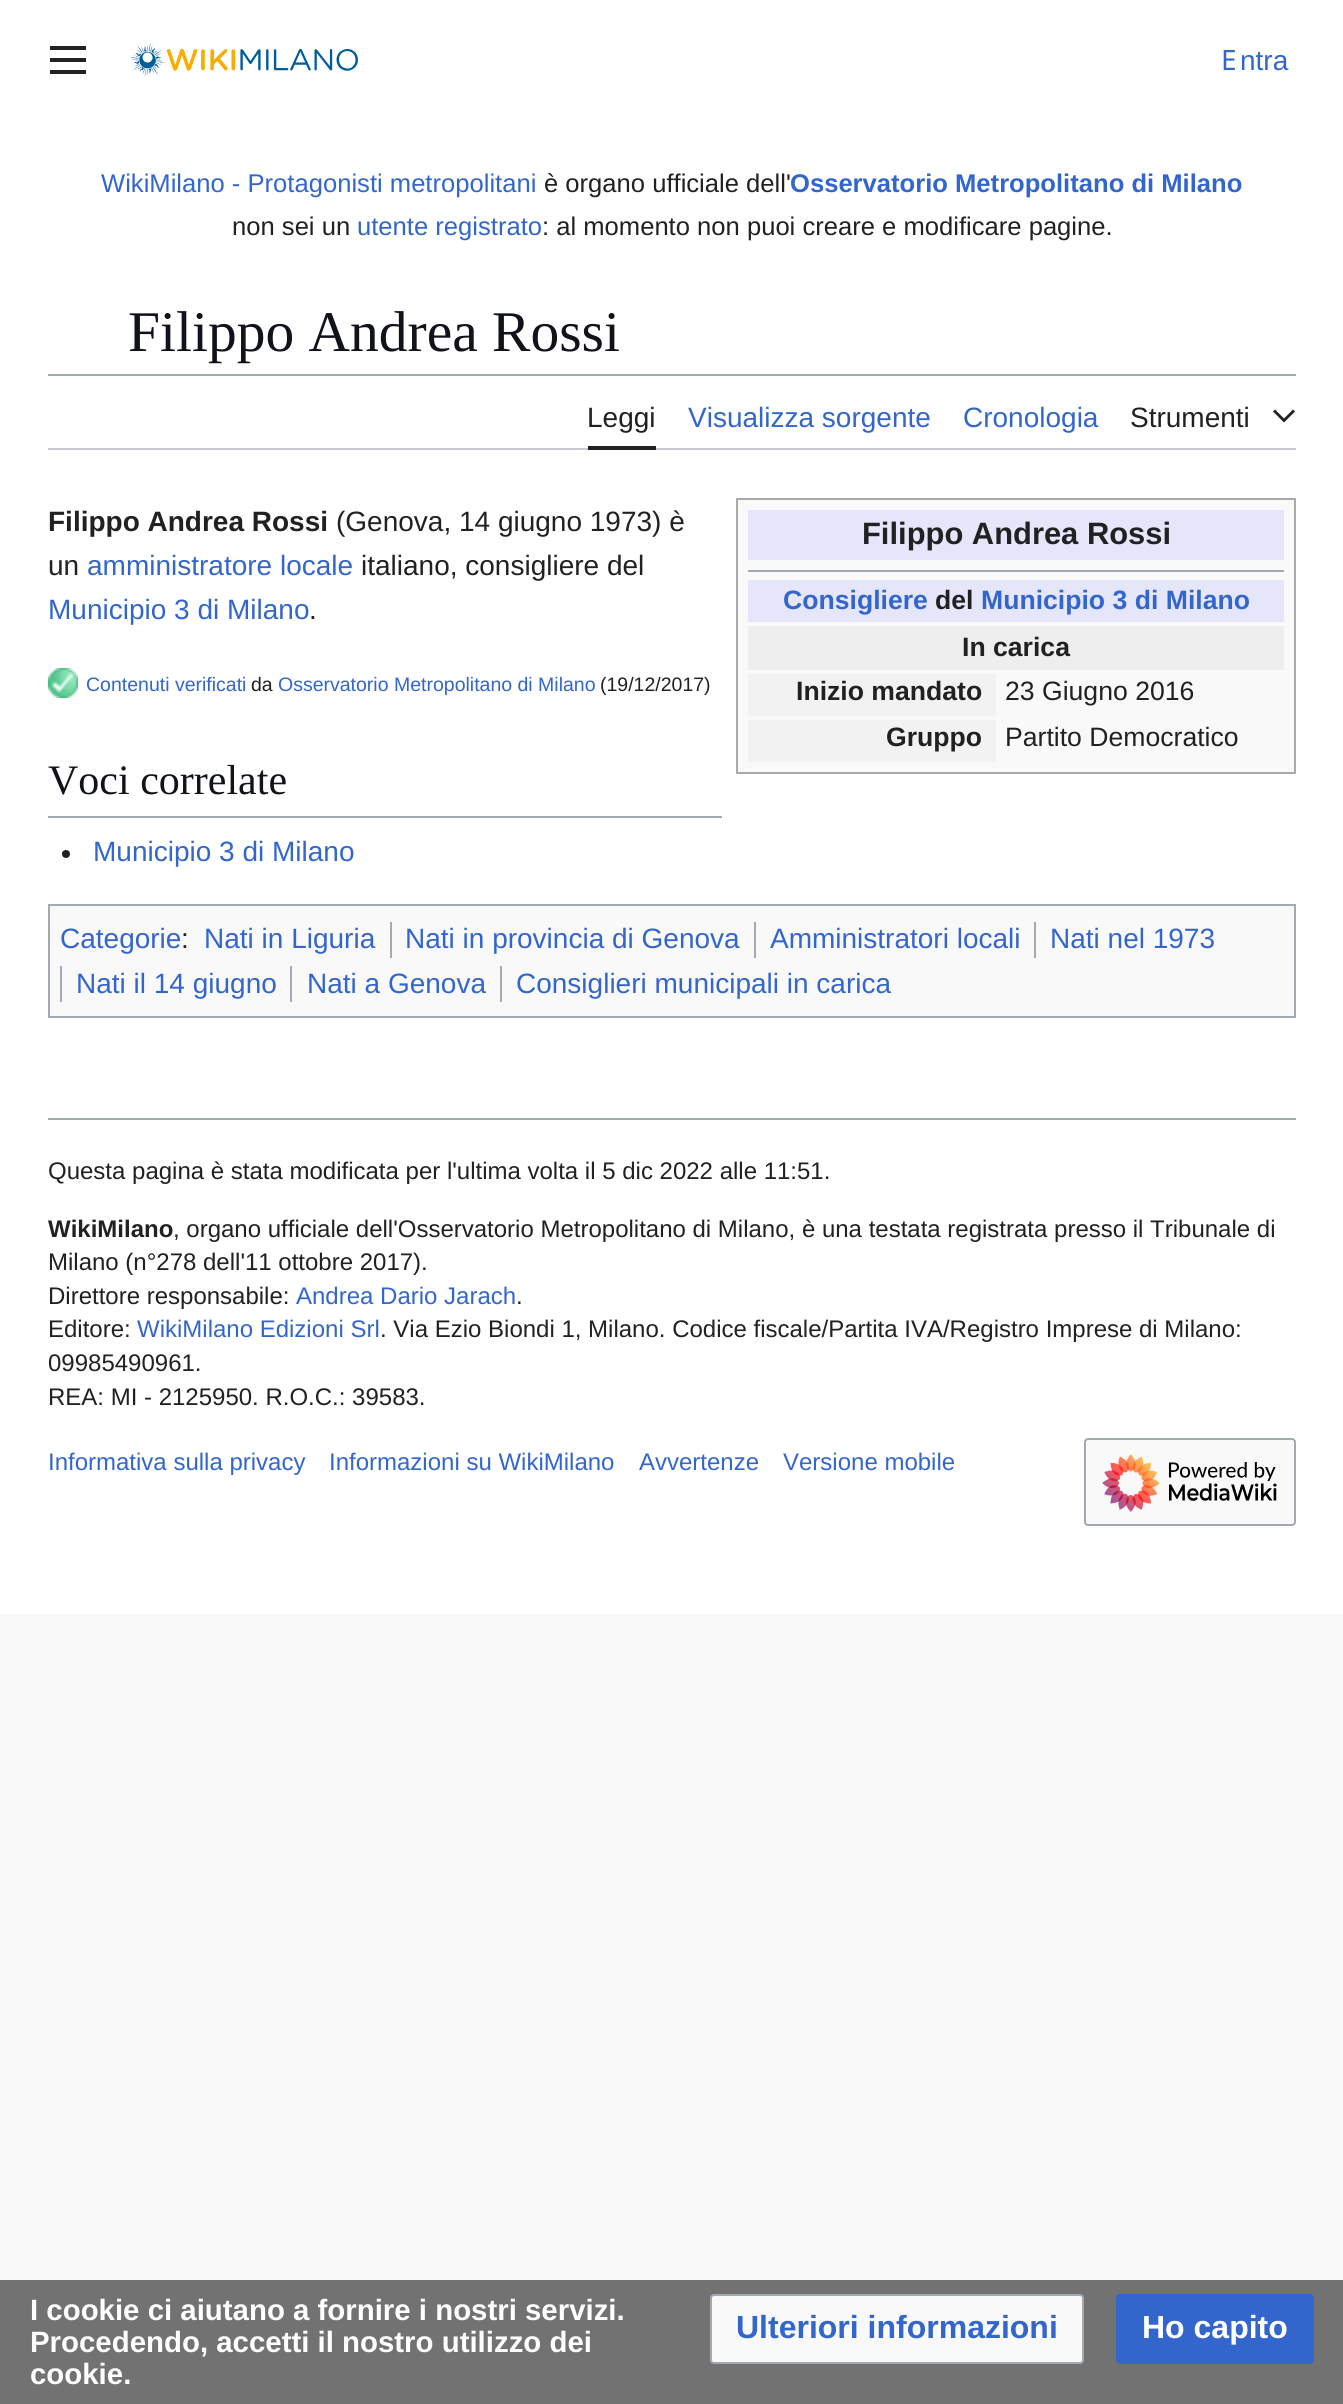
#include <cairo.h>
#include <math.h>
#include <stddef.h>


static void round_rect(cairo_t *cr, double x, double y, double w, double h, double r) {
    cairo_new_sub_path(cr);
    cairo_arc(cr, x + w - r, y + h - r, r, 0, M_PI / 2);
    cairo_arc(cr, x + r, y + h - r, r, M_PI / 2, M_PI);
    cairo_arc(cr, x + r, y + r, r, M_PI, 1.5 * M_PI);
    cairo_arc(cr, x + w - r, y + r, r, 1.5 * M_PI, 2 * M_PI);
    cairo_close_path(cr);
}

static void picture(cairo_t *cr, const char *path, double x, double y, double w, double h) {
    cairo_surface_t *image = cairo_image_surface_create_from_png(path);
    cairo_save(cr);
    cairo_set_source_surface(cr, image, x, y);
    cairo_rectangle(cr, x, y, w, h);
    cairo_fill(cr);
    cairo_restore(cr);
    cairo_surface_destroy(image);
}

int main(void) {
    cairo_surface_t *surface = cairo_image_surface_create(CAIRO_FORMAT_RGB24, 1343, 2404);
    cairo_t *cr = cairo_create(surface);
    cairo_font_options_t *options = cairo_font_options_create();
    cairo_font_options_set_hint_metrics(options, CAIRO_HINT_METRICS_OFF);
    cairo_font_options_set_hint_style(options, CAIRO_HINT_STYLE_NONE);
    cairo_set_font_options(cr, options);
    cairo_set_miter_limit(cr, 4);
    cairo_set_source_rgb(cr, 0.973, 0.976, 0.98);
    cairo_paint(cr);
    cairo_set_source_rgb(cr, 1, 1, 1);
    cairo_rectangle(cr, 0, 0, 1343, 1614);
    cairo_fill(cr);
    picture(cr, "img1.png", 50, 46, 36, 28);
    picture(cr, "img2.png", 130, 43, 228, 34);
    cairo_select_font_face(cr, "Noto Sans", CAIRO_FONT_SLANT_NORMAL, CAIRO_FONT_WEIGHT_NORMAL);
    cairo_set_font_size(cr, 28);
    cairo_set_source_rgb(cr, 0.2, 0.4, 0.8);
    cairo_move_to(cr, 1221, 70);
    cairo_show_text(cr, "E");
    cairo_select_font_face(cr, "Liberation Sans", CAIRO_FONT_SLANT_NORMAL, CAIRO_FONT_WEIGHT_NORMAL);
    cairo_move_to(cr, 1240, 70);
    cairo_show_text(cr, "ntra");
    cairo_set_font_size(cr, 25.6);
    cairo_move_to(cr, 101, 192);
    cairo_show_text(cr, "WikiMilano - Protagonisti metropolitani");
    cairo_set_source_rgb(cr, 0.125, 0.129, 0.133);
    cairo_move_to(cr, 544, 192);
    cairo_show_text(cr, "è organo ufficiale dell'");
    cairo_select_font_face(cr, "Liberation Sans", CAIRO_FONT_SLANT_NORMAL, CAIRO_FONT_WEIGHT_BOLD);
    cairo_set_source_rgb(cr, 0.2, 0.4, 0.8);
    cairo_move_to(cr, 790, 192);
    cairo_show_text(cr, "Osservatorio Metropolitano di Milano");
    cairo_select_font_face(cr, "Liberation Sans", CAIRO_FONT_SLANT_NORMAL, CAIRO_FONT_WEIGHT_NORMAL);
    cairo_set_source_rgb(cr, 0.125, 0.129, 0.133);
    cairo_move_to(cr, 232, 235);
    cairo_show_text(cr, "non sei un");
    cairo_set_source_rgb(cr, 0.2, 0.4, 0.8);
    cairo_move_to(cr, 357, 235);
    cairo_show_text(cr, "utente registrato");
    cairo_set_source_rgb(cr, 0.125, 0.129, 0.133);
    cairo_move_to(cr, 542, 235);
    cairo_show_text(cr, ": al momento non puoi creare e modificare pagine.");
    cairo_select_font_face(cr, "Liberation Serif", CAIRO_FONT_SLANT_NORMAL, CAIRO_FONT_WEIGHT_NORMAL);
    cairo_set_font_size(cr, 57.5);
    cairo_set_source_rgb(cr, 0.063, 0.078, 0.094);
    cairo_move_to(cr, 128, 351);
    cairo_show_text(cr, "Filippo Andrea Rossi");
    cairo_set_source_rgb(cr, 0.635, 0.663, 0.694);
    cairo_rectangle(cr, 48, 374, 1248, 2);
    cairo_fill(cr);
    cairo_set_source_rgb(cr, 0.784, 0.8, 0.82);
    cairo_rectangle(cr, 48, 448, 1248, 2);
    cairo_fill(cr);
    cairo_set_source_rgb(cr, 0.125, 0.129, 0.133);
    cairo_rectangle(cr, 588, 446, 68, 4);
    cairo_fill(cr);
    cairo_select_font_face(cr, "Liberation Sans", CAIRO_FONT_SLANT_NORMAL, CAIRO_FONT_WEIGHT_NORMAL);
    cairo_set_font_size(cr, 28);
    cairo_move_to(cr, 587, 427);
    cairo_show_text(cr, "Leggi");
    cairo_set_source_rgb(cr, 0.2, 0.4, 0.8);
    cairo_move_to(cr, 688, 427);
    cairo_show_text(cr, "Visualizza sorgente");
    cairo_move_to(cr, 963, 427);
    cairo_show_text(cr, "Cronologia");
    cairo_set_source_rgb(cr, 0.125, 0.129, 0.133);
    cairo_move_to(cr, 1130, 427);
    cairo_show_text(cr, "Strumenti");
    cairo_new_path(cr);
    cairo_move_to(cr, 1293, 409.5);
    cairo_line_to(cr, 1284, 418.5);
    cairo_line_to(cr, 1275, 409.5);
    cairo_line_to(cr, 1273, 411.5);
    cairo_line_to(cr, 1284, 422.5);
    cairo_line_to(cr, 1295, 411.5);
    cairo_close_path(cr);
    cairo_fill(cr);
    cairo_select_font_face(cr, "Liberation Sans", CAIRO_FONT_SLANT_NORMAL, CAIRO_FONT_WEIGHT_BOLD);
    cairo_move_to(cr, 48, 531);
    cairo_show_text(cr, "Filippo Andrea Rossi");
    cairo_select_font_face(cr, "Liberation Sans", CAIRO_FONT_SLANT_NORMAL, CAIRO_FONT_WEIGHT_NORMAL);
    cairo_move_to(cr, 336, 531);
    cairo_show_text(cr, "(Genova, 14 giugno 1973) è");
    cairo_move_to(cr, 48, 575);
    cairo_show_text(cr, "un");
    cairo_set_source_rgb(cr, 0.2, 0.4, 0.8);
    cairo_move_to(cr, 87, 575);
    cairo_show_text(cr, "amministratore locale");
    cairo_set_source_rgb(cr, 0.125, 0.129, 0.133);
    cairo_move_to(cr, 361, 575);
    cairo_show_text(cr, "italiano, consigliere del");
    cairo_set_source_rgb(cr, 0.2, 0.4, 0.8);
    cairo_move_to(cr, 48, 619);
    cairo_show_text(cr, "Municipio 3 di Milano");
    cairo_set_source_rgb(cr, 0.125, 0.129, 0.133);
    cairo_move_to(cr, 309, 619);
    cairo_show_text(cr, ".");
    cairo_set_source_rgb(cr, 0.976, 0.976, 0.976);
    cairo_rectangle(cr, 737, 499, 558, 274);
    cairo_fill_preserve(cr);
    cairo_set_source_rgb(cr, 0.667, 0.667, 0.667);
    cairo_stroke(cr);
    cairo_set_source_rgb(cr, 0.902, 0.902, 0.98);
    cairo_rectangle(cr, 748, 510, 536, 50);
    cairo_fill(cr);
    cairo_select_font_face(cr, "Liberation Sans", CAIRO_FONT_SLANT_NORMAL, CAIRO_FONT_WEIGHT_BOLD);
    cairo_set_font_size(cr, 30.9);
    cairo_set_source_rgb(cr, 0.125, 0.129, 0.133);
    cairo_move_to(cr, 862, 544);
    cairo_show_text(cr, "Filippo Andrea Rossi");
    cairo_set_source_rgb(cr, 0.635, 0.663, 0.694);
    cairo_rectangle(cr, 748, 570, 536, 2);
    cairo_fill(cr);
    cairo_set_source_rgb(cr, 0.902, 0.902, 0.98);
    cairo_rectangle(cr, 748, 580, 536, 42);
    cairo_fill(cr);
    cairo_set_font_size(cr, 26.6);
    cairo_set_source_rgb(cr, 0.2, 0.4, 0.8);
    cairo_move_to(cr, 783, 609);
    cairo_show_text(cr, "Consigliere");
    cairo_set_source_rgb(cr, 0.125, 0.129, 0.133);
    cairo_move_to(cr, 935, 609);
    cairo_show_text(cr, "del");
    cairo_set_source_rgb(cr, 0.2, 0.4, 0.8);
    cairo_move_to(cr, 981, 609);
    cairo_show_text(cr, "Municipio 3 di Milano");
    cairo_set_source_rgb(cr, 0.933, 0.933, 0.933);
    cairo_rectangle(cr, 748, 626, 536, 44);
    cairo_fill(cr);
    cairo_set_source_rgb(cr, 0.125, 0.129, 0.133);
    cairo_move_to(cr, 962, 656);
    cairo_show_text(cr, "In carica");
    cairo_set_source_rgb(cr, 0.949, 0.949, 0.949);
    cairo_rectangle(cr, 748, 674, 248, 42);
    cairo_fill(cr);
    cairo_set_source_rgb(cr, 0.125, 0.129, 0.133);
    cairo_move_to(cr, 796, 700);
    cairo_show_text(cr, "Inizio mandato");
    cairo_select_font_face(cr, "Liberation Sans", CAIRO_FONT_SLANT_NORMAL, CAIRO_FONT_WEIGHT_NORMAL);
    cairo_move_to(cr, 1005, 700);
    cairo_show_text(cr, "23 Giugno 2016");
    cairo_set_source_rgb(cr, 0.949, 0.949, 0.949);
    cairo_rectangle(cr, 748, 720, 248, 42);
    cairo_fill(cr);
    cairo_select_font_face(cr, "Liberation Sans", CAIRO_FONT_SLANT_NORMAL, CAIRO_FONT_WEIGHT_BOLD);
    cairo_set_source_rgb(cr, 0.125, 0.129, 0.133);
    cairo_move_to(cr, 886, 746);
    cairo_show_text(cr, "Gruppo");
    cairo_select_font_face(cr, "Liberation Sans", CAIRO_FONT_SLANT_NORMAL, CAIRO_FONT_WEIGHT_NORMAL);
    cairo_move_to(cr, 1005, 746);
    cairo_show_text(cr, "Partito Democratico");
    picture(cr, "img3.png", 48, 668, 30, 30);
    cairo_set_font_size(cr, 19.5);
    cairo_set_source_rgb(cr, 0.2, 0.4, 0.8);
    cairo_move_to(cr, 86, 691);
    cairo_show_text(cr, "Contenuti verificati");
    cairo_set_source_rgb(cr, 0.125, 0.129, 0.133);
    cairo_move_to(cr, 251, 691);
    cairo_show_text(cr, "da");
    cairo_set_source_rgb(cr, 0.2, 0.4, 0.8);
    cairo_move_to(cr, 278, 691);
    cairo_show_text(cr, "Osservatorio Metropolitano di Milano");
    cairo_set_source_rgb(cr, 0.125, 0.129, 0.133);
    cairo_move_to(cr, 600, 691);
    cairo_show_text(cr, "(19/12/2017)");
    cairo_set_source_rgb(cr, 0.635, 0.663, 0.694);
    cairo_rectangle(cr, 48, 816, 674, 2);
    cairo_fill(cr);
    cairo_select_font_face(cr, "Liberation Serif", CAIRO_FONT_SLANT_NORMAL, CAIRO_FONT_WEIGHT_NORMAL);
    cairo_set_font_size(cr, 42);
    cairo_set_source_rgb(cr, 0.063, 0.078, 0.094);
    cairo_move_to(cr, 48, 794);
    cairo_show_text(cr, "Voci correlate");
    cairo_set_source_rgb(cr, 0.125, 0.129, 0.133);
    cairo_new_path(cr);
    cairo_arc(cr, 66, 854, 4, 0, 2 * M_PI);
    cairo_fill(cr);
    cairo_select_font_face(cr, "Liberation Sans", CAIRO_FONT_SLANT_NORMAL, CAIRO_FONT_WEIGHT_NORMAL);
    cairo_set_font_size(cr, 28);
    cairo_set_source_rgb(cr, 0.2, 0.4, 0.8);
    cairo_move_to(cr, 93, 861);
    cairo_show_text(cr, "Municipio 3 di Milano");
    cairo_set_source_rgb(cr, 0.973, 0.976, 0.98);
    cairo_rectangle(cr, 49, 905, 1246, 112);
    cairo_fill_preserve(cr);
    cairo_set_source_rgb(cr, 0.635, 0.663, 0.694);
    cairo_stroke(cr);
    cairo_set_source_rgb(cr, 0.2, 0.4, 0.8);
    cairo_move_to(cr, 60, 948);
    cairo_show_text(cr, "Categorie");
    cairo_move_to(cr, 204, 948);
    cairo_show_text(cr, "Nati in Liguria");
    cairo_set_source_rgb(cr, 0.635, 0.663, 0.694);
    cairo_rectangle(cr, 390, 922, 2, 36);
    cairo_fill(cr);
    cairo_set_source_rgb(cr, 0.2, 0.4, 0.8);
    cairo_move_to(cr, 405, 948);
    cairo_show_text(cr, "Nati in provincia di Genova");
    cairo_set_source_rgb(cr, 0.635, 0.663, 0.694);
    cairo_rectangle(cr, 754, 922, 2, 36);
    cairo_fill(cr);
    cairo_set_source_rgb(cr, 0.2, 0.4, 0.8);
    cairo_move_to(cr, 770, 948);
    cairo_show_text(cr, "Amministratori locali");
    cairo_set_source_rgb(cr, 0.635, 0.663, 0.694);
    cairo_rectangle(cr, 1034, 922, 2, 36);
    cairo_fill(cr);
    cairo_set_source_rgb(cr, 0.2, 0.4, 0.8);
    cairo_move_to(cr, 1050, 948);
    cairo_show_text(cr, "Nati nel 1973");
    cairo_set_source_rgb(cr, 0.635, 0.663, 0.694);
    cairo_rectangle(cr, 60, 966, 2, 36);
    cairo_fill(cr);
    cairo_set_source_rgb(cr, 0.2, 0.4, 0.8);
    cairo_move_to(cr, 76, 993);
    cairo_show_text(cr, "Nati il 14 giugno");
    cairo_set_source_rgb(cr, 0.635, 0.663, 0.694);
    cairo_rectangle(cr, 290, 966, 2, 36);
    cairo_fill(cr);
    cairo_set_source_rgb(cr, 0.2, 0.4, 0.8);
    cairo_move_to(cr, 307, 993);
    cairo_show_text(cr, "Nati a Genova");
    cairo_set_source_rgb(cr, 0.635, 0.663, 0.694);
    cairo_rectangle(cr, 500, 966, 2, 36);
    cairo_fill(cr);
    cairo_set_source_rgb(cr, 0.2, 0.4, 0.8);
    cairo_move_to(cr, 516, 993);
    cairo_show_text(cr, "Consiglieri municipali in carica");
    cairo_set_source_rgb(cr, 0.125, 0.129, 0.133);
    cairo_move_to(cr, 181, 948);
    cairo_show_text(cr, ":");
    cairo_set_source_rgb(cr, 0.447, 0.447, 0.447);
    cairo_rectangle(cr, 0, 2280, 1343, 124);
    cairo_fill(cr);
    cairo_select_font_face(cr, "Liberation Sans", CAIRO_FONT_SLANT_NORMAL, CAIRO_FONT_WEIGHT_BOLD);
    cairo_set_font_size(cr, 29.4);
    cairo_set_source_rgb(cr, 1, 1, 1);
    cairo_move_to(cr, 30, 2320);
    cairo_show_text(cr, "I cookie ci aiutano a fornire i nostri servizi.");
    cairo_move_to(cr, 30, 2352);
    cairo_show_text(cr, "Procedendo, accetti il nostro utilizzo dei");
    cairo_move_to(cr, 30, 2384);
    cairo_show_text(cr, "cookie.");
    cairo_set_source_rgb(cr, 0.973, 0.976, 0.98);
    round_rect(cr, 711, 2295, 372, 68, 3);
    cairo_fill_preserve(cr);
    cairo_set_source_rgb(cr, 0.635, 0.663, 0.694);
    cairo_stroke(cr);
    cairo_set_font_size(cr, 32);
    cairo_set_source_rgb(cr, 0.2, 0.4, 0.8);
    cairo_move_to(cr, 736, 2338);
    cairo_show_text(cr, "Ulteriori informazioni");
    round_rect(cr, 1117, 2295, 196, 68, 3);
    cairo_fill_preserve(cr);
    cairo_stroke(cr);
    cairo_set_source_rgb(cr, 1, 1, 1);
    cairo_move_to(cr, 1142, 2338);
    cairo_show_text(cr, "Ho capito");
    cairo_set_source_rgb(cr, 0.635, 0.663, 0.694);
    cairo_rectangle(cr, 48, 1118, 1248, 2);
    cairo_fill(cr);
    cairo_select_font_face(cr, "Liberation Sans", CAIRO_FONT_SLANT_NORMAL, CAIRO_FONT_WEIGHT_NORMAL);
    cairo_set_font_size(cr, 24);
    cairo_set_source_rgb(cr, 0.125, 0.129, 0.133);
    cairo_move_to(cr, 48, 1179);
    cairo_show_text(cr, "Questa pagina è stata modificata per l'ultima volta il 5 dic 2022 alle 11:51.");
    cairo_select_font_face(cr, "Liberation Sans", CAIRO_FONT_SLANT_NORMAL, CAIRO_FONT_WEIGHT_BOLD);
    cairo_move_to(cr, 48, 1237);
    cairo_show_text(cr, "WikiMilano");
    cairo_select_font_face(cr, "Liberation Sans", CAIRO_FONT_SLANT_NORMAL, CAIRO_FONT_WEIGHT_NORMAL);
    cairo_move_to(cr, 173, 1237);
    cairo_show_text(cr, ", organo ufficiale dell'Osservatorio Metropolitano di Milano, è una testata registrata presso il Tribunale di");
    cairo_move_to(cr, 48, 1270);
    cairo_show_text(cr, "Milano (n°278 dell'11 ottobre 2017).");
    cairo_move_to(cr, 48, 1304);
    cairo_show_text(cr, "Direttore responsabile:");
    cairo_set_source_rgb(cr, 0.2, 0.4, 0.8);
    cairo_move_to(cr, 296, 1304);
    cairo_show_text(cr, "Andrea Dario Jarach");
    cairo_set_source_rgb(cr, 0.125, 0.129, 0.133);
    cairo_move_to(cr, 516, 1304);
    cairo_show_text(cr, ".");
    cairo_move_to(cr, 48, 1337);
    cairo_show_text(cr, "Editore:");
    cairo_set_source_rgb(cr, 0.2, 0.4, 0.8);
    cairo_move_to(cr, 137, 1337);
    cairo_show_text(cr, "WikiMilano Edizioni Srl");
    cairo_set_source_rgb(cr, 0.125, 0.129, 0.133);
    cairo_move_to(cr, 380, 1337);
    cairo_show_text(cr, ". Via Ezio Biondi 1, Milano. Codice fiscale/Partita IVA/Registro Imprese di Milano:");
    cairo_move_to(cr, 48, 1371);
    cairo_show_text(cr, "09985490961.");
    cairo_move_to(cr, 48, 1405);
    cairo_show_text(cr, "REA: MI - 2125950. R.O.C.: 39583.");
    cairo_set_source_rgb(cr, 0.2, 0.4, 0.8);
    cairo_move_to(cr, 48, 1470);
    cairo_show_text(cr, "Informativa sulla privacy");
    cairo_move_to(cr, 329, 1470);
    cairo_show_text(cr, "Informazioni su WikiMilano");
    cairo_move_to(cr, 639, 1470);
    cairo_show_text(cr, "Avvertenze");
    cairo_move_to(cr, 783, 1470);
    cairo_show_text(cr, "Versione mobile");
    cairo_set_source_rgb(cr, 0.973, 0.976, 0.98);
    round_rect(cr, 1085, 1439, 210, 86, 3);
    cairo_fill_preserve(cr);
    cairo_set_source_rgb(cr, 0.635, 0.663, 0.694);
    cairo_stroke(cr);
    picture(cr, "img4.png", 1102, 1454, 175, 58);
    cairo_surface_write_to_png(surface, "page.png");
    cairo_font_options_destroy(options);
    cairo_destroy(cr);
    cairo_surface_destroy(surface);
    return 0;
}
